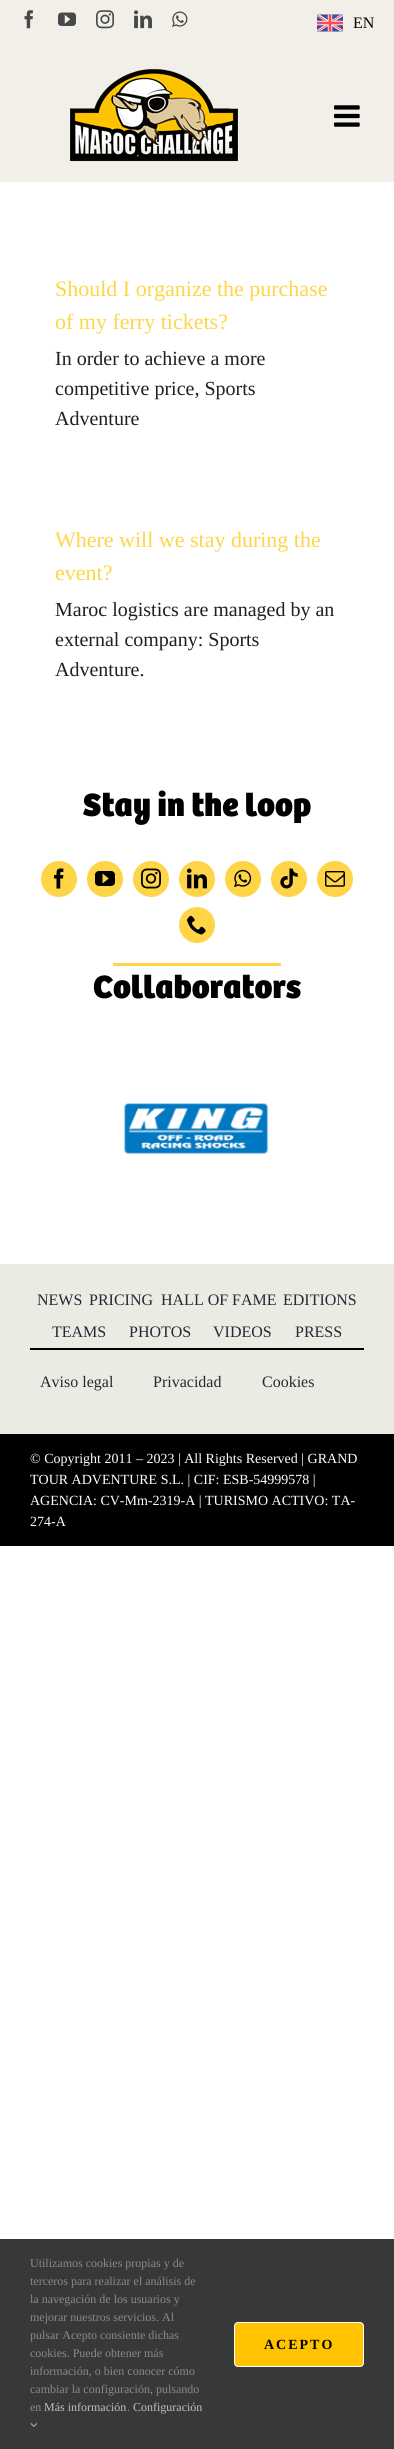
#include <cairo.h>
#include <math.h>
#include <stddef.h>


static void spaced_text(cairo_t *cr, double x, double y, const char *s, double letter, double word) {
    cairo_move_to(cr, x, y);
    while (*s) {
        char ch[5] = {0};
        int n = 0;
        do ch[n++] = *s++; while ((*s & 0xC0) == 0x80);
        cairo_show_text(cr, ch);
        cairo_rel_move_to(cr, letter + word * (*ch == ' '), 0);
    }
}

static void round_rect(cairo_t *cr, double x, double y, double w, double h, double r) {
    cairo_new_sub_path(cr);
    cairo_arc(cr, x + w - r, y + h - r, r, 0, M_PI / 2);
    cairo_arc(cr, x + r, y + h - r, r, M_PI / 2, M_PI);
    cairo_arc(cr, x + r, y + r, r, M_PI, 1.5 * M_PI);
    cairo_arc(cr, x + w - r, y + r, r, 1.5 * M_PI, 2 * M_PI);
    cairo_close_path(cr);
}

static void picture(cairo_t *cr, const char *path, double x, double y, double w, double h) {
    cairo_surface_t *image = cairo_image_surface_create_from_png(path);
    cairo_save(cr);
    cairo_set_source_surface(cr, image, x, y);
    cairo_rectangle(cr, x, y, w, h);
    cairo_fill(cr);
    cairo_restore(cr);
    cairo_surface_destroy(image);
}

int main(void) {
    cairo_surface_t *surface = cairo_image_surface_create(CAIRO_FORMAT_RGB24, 394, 2449);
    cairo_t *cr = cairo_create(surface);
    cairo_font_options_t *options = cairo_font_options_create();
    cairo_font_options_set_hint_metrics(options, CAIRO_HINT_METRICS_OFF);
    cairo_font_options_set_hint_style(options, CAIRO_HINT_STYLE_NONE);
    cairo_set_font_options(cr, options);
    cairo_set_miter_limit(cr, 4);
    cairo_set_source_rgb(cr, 1, 1, 1);
    cairo_paint(cr);
    cairo_set_source_rgb(cr, 0.945, 0.937, 0.906);
    cairo_rectangle(cr, 0, 0, 394, 182);
    cairo_fill(cr);
    picture(cr, "img1.png", 24, 10, 9, 19);
    picture(cr, "img2.png", 58, 12, 18, 14);
    picture(cr, "img3.png", 96, 10, 18, 19);
    picture(cr, "img4.png", 134, 10, 18, 19);
    picture(cr, "img5.png", 172, 11, 16, 16);
    picture(cr, "img6.png", 317, 14, 26, 18);
    cairo_select_font_face(cr, "Liberation Serif", CAIRO_FONT_SLANT_NORMAL, CAIRO_FONT_WEIGHT_NORMAL);
    cairo_set_font_size(cr, 16);
    cairo_set_source_rgb(cr, 0, 0, 0);
    cairo_move_to(cr, 353, 28);
    cairo_show_text(cr, "EN");
    picture(cr, "img7.png", 70, 69, 168, 93);
    picture(cr, "img8.png", 334, 105, 26, 22);
    cairo_set_font_size(cr, 22);
    cairo_set_source_rgb(cr, 1, 0.835, 0.278);
    cairo_move_to(cr, 55, 296);
    cairo_show_text(cr, "Should I organize the purchase");
    cairo_move_to(cr, 55, 329);
    cairo_show_text(cr, "of my ferry tickets?");
    cairo_set_font_size(cr, 20);
    cairo_set_source_rgb(cr, 0.122, 0.122, 0.122);
    cairo_move_to(cr, 55, 365);
    cairo_show_text(cr, "In order to achieve a more");
    cairo_move_to(cr, 55, 395);
    cairo_show_text(cr, "competitive price, Sports");
    cairo_move_to(cr, 55, 425);
    cairo_show_text(cr, "Adventure");
    cairo_set_font_size(cr, 22);
    cairo_set_source_rgb(cr, 1, 0.835, 0.278);
    cairo_move_to(cr, 55, 547);
    cairo_show_text(cr, "Where will we stay during the");
    cairo_move_to(cr, 55, 580);
    cairo_show_text(cr, "event?");
    cairo_set_font_size(cr, 20);
    cairo_set_source_rgb(cr, 0.122, 0.122, 0.122);
    cairo_move_to(cr, 55, 616);
    cairo_show_text(cr, "Maroc logistics are managed by an");
    cairo_move_to(cr, 55, 646);
    cairo_show_text(cr, "external company: Sports");
    cairo_move_to(cr, 55, 676);
    cairo_show_text(cr, "Adventure.");
    cairo_select_font_face(cr, "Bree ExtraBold", CAIRO_FONT_SLANT_NORMAL, CAIRO_FONT_WEIGHT_NORMAL);
    cairo_set_font_size(cr, 33.5);
    cairo_set_source_rgb(cr, 0, 0, 0);
    cairo_move_to(cr, 83, 816);
    cairo_show_text(cr, "Stay in the loop");
    cairo_set_source_rgb(cr, 1, 0.835, 0.278);
    cairo_new_path(cr);
    cairo_arc(cr, 59, 879, 18, 0, 2 * M_PI);
    cairo_fill(cr);
    picture(cr, "img9.png", 54, 868, 10, 21);
    cairo_arc(cr, 105, 879, 18, 0, 2 * M_PI);
    cairo_fill(cr);
    picture(cr, "img10.png", 95, 871, 20, 15);
    cairo_arc(cr, 151, 879, 18, 0, 2 * M_PI);
    cairo_fill(cr);
    picture(cr, "img11.png", 141, 868, 20, 21);
    cairo_arc(cr, 197, 879, 18, 0, 2 * M_PI);
    cairo_fill(cr);
    picture(cr, "img12.png", 187, 868, 20, 21);
    cairo_arc(cr, 243, 879, 18, 0, 2 * M_PI);
    cairo_fill(cr);
    picture(cr, "img13.png", 234, 869, 18, 19);
    cairo_arc(cr, 289, 879, 18, 0, 2 * M_PI);
    cairo_fill(cr);
    picture(cr, "img14.png", 280, 868, 18, 21);
    cairo_arc(cr, 335, 879, 18, 0, 2 * M_PI);
    cairo_fill(cr);
    picture(cr, "img15.png", 325, 871, 20, 16);
    cairo_arc(cr, 197, 925, 18, 0, 2 * M_PI);
    cairo_fill(cr);
    picture(cr, "img16.png", 187, 915, 19, 20);
    cairo_rectangle(cr, 113, 963, 168, 3);
    cairo_fill(cr);
    cairo_set_source_rgb(cr, 0, 0, 0);
    cairo_move_to(cr, 93, 998);
    cairo_show_text(cr, "Collaborators");
    picture(cr, "img17.png", 124, 1103, 145, 51);
    cairo_set_source_rgb(cr, 0.925, 0.918, 0.89);
    cairo_rectangle(cr, 0, 1264, 394, 170);
    cairo_fill(cr);
    cairo_select_font_face(cr, "Liberation Serif", CAIRO_FONT_SLANT_NORMAL, CAIRO_FONT_WEIGHT_NORMAL);
    cairo_set_font_size(cr, 16);
    cairo_set_source_rgb(cr, 0.129, 0.161, 0.204);
    cairo_move_to(cr, 37, 1305);
    cairo_show_text(cr, "NEWS");
    cairo_move_to(cr, 89, 1305);
    cairo_show_text(cr, "PRICING");
    cairo_move_to(cr, 161, 1305);
    cairo_show_text(cr, "HALL OF FAME");
    cairo_move_to(cr, 283, 1305);
    cairo_show_text(cr, "EDITIONS");
    cairo_move_to(cr, 52, 1337);
    cairo_show_text(cr, "TEAMS");
    cairo_move_to(cr, 129, 1337);
    cairo_show_text(cr, "PHOTOS");
    cairo_move_to(cr, 213, 1337);
    cairo_show_text(cr, "VIDEOS");
    cairo_move_to(cr, 295, 1337);
    cairo_show_text(cr, "PRESS");
    cairo_set_source_rgb(cr, 0, 0, 0);
    cairo_rectangle(cr, 30, 1348, 334, 2);
    cairo_fill(cr);
    cairo_set_source_rgb(cr, 0.129, 0.161, 0.204);
    cairo_move_to(cr, 40, 1387);
    cairo_show_text(cr, "Aviso legal");
    cairo_move_to(cr, 153, 1387);
    cairo_show_text(cr, "Privacidad");
    cairo_move_to(cr, 262, 1387);
    cairo_show_text(cr, "Cookies");
    cairo_set_source_rgb(cr, 0, 0, 0);
    cairo_rectangle(cr, 0, 1434, 394, 112);
    cairo_fill(cr);
    cairo_set_font_size(cr, 14);
    cairo_set_source_rgb(cr, 1, 1, 1);
    cairo_move_to(cr, 30, 1463);
    cairo_show_text(cr, "© Copyright 2011 – 2023 | All Rights Reserved | GRAND");
    cairo_move_to(cr, 30, 1484);
    cairo_show_text(cr, "TOUR ADVENTURE S.L. | CIF: ESB-54999578 |");
    cairo_move_to(cr, 30, 1505);
    cairo_show_text(cr, "AGENCIA: CV-Mm-2319-A | TURISMO ACTIVO: TA-");
    cairo_move_to(cr, 30, 1526);
    cairo_show_text(cr, "274-A");
    cairo_set_source_rgb(cr, 0.212, 0.22, 0.224);
    cairo_rectangle(cr, 0, 2239, 394, 210);
    cairo_fill(cr);
    cairo_set_font_size(cr, 12);
    cairo_set_source_rgb(cr, 0.549, 0.537, 0.537);
    cairo_move_to(cr, 30, 2267);
    cairo_show_text(cr, "Utilizamos cookies propias y de");
    cairo_move_to(cr, 30, 2285);
    cairo_show_text(cr, "terceros para realizar el análisis de");
    cairo_move_to(cr, 30, 2303);
    cairo_show_text(cr, "la navegación de los usuarios y");
    cairo_move_to(cr, 30, 2321);
    cairo_show_text(cr, "mejorar nuestros servicios. Al");
    cairo_move_to(cr, 30, 2339);
    cairo_show_text(cr, "pulsar Acepto consiente dichas");
    cairo_move_to(cr, 30, 2357);
    cairo_show_text(cr, "cookies. Puede obtener más");
    cairo_move_to(cr, 30, 2375);
    cairo_show_text(cr, "información, o bien conocer cómo");
    cairo_move_to(cr, 30, 2393);
    cairo_show_text(cr, "cambiar la configuración, pulsando");
    cairo_move_to(cr, 30, 2411);
    cairo_show_text(cr, "en");
    cairo_set_source_rgb(cr, 0.749, 0.749, 0.749);
    cairo_move_to(cr, 44, 2411);
    cairo_show_text(cr, "Más información");
    cairo_set_source_rgb(cr, 0.549, 0.537, 0.537);
    cairo_move_to(cr, 127, 2411);
    cairo_show_text(cr, ".");
    cairo_set_source_rgb(cr, 0.749, 0.749, 0.749);
    cairo_move_to(cr, 133, 2411);
    cairo_show_text(cr, "Configuración");
    picture(cr, "img18.png", 30, 2423, 8, 4);
    cairo_set_source_rgb(cr, 1, 0.765, 0);
    round_rect(cr, 234.5, 2322.5, 129, 44, 3.5);
    cairo_fill_preserve(cr);
    cairo_set_source_rgb(cr, 1, 1, 1);
    cairo_set_line_width(cr, 1);
    cairo_stroke(cr);
    cairo_select_font_face(cr, "Liberation Serif", CAIRO_FONT_SLANT_NORMAL, CAIRO_FONT_WEIGHT_BOLD);
    cairo_set_font_size(cr, 14);
    cairo_set_source_rgb(cr, 0, 0, 0);
    spaced_text(cr, 264, 2349, "ACEPTO", 2, 0);
    cairo_surface_write_to_png(surface, "page.png");
    cairo_font_options_destroy(options);
    cairo_destroy(cr);
    cairo_surface_destroy(surface);
    return 0;
}
